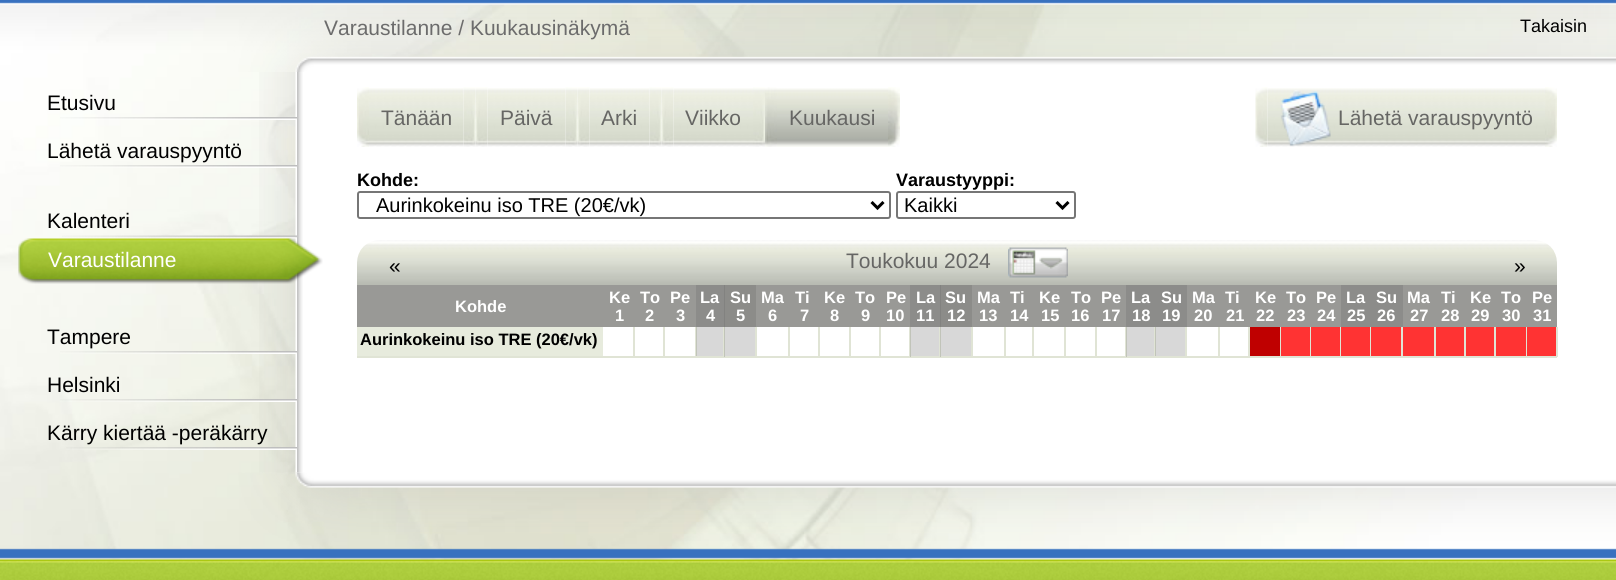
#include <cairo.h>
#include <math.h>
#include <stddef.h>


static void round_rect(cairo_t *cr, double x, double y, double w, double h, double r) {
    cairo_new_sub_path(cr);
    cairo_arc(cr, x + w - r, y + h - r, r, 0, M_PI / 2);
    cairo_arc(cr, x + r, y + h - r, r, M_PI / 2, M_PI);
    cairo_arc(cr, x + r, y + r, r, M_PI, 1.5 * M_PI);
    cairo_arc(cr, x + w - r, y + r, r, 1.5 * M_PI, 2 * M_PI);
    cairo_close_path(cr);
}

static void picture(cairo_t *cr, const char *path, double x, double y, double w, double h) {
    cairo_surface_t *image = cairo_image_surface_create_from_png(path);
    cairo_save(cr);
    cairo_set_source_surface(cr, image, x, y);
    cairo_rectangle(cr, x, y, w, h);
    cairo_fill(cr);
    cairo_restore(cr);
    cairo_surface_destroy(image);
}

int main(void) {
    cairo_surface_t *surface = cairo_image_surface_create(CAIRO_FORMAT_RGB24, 1616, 580);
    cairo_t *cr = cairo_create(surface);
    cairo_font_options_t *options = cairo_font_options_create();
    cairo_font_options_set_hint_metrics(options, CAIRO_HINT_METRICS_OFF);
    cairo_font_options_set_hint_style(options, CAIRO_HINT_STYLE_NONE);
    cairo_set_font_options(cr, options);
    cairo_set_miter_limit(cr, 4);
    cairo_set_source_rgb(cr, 1, 1, 1);
    cairo_paint(cr);
    picture(cr, "img1.png", 0, 4, 1616, 556);
    picture(cr, "img2.png", 0, 0, 1616, 72);
    cairo_select_font_face(cr, "Liberation Sans", CAIRO_FONT_SLANT_NORMAL, CAIRO_FONT_WEIGHT_NORMAL);
    cairo_set_font_size(cr, 21);
    cairo_set_source_rgb(cr, 0.424, 0.424, 0.424);
    cairo_move_to(cr, 324, 35);
    cairo_show_text(cr, "Varaustilanne / Kuukausinäkymä");
    cairo_set_font_size(cr, 18);
    cairo_set_source_rgb(cr, 0, 0, 0);
    cairo_move_to(cr, 1520, 32);
    cairo_show_text(cr, "Takaisin");
    picture(cr, "img3.png", 259, 72, 38, 401);
    picture(cr, "img4.png", 60, 117, 237, 3);
    cairo_set_font_size(cr, 21);
    cairo_move_to(cr, 47, 110);
    cairo_show_text(cr, "Etusivu");
    picture(cr, "img5.png", 60, 165, 237, 3);
    cairo_move_to(cr, 47, 158);
    cairo_show_text(cr, "Lähetä varauspyyntö");
    picture(cr, "img6.png", 62, 235, 235, 4);
    cairo_move_to(cr, 47, 228);
    cairo_show_text(cr, "Kalenteri");
    cairo_set_source_rgb(cr, 1, 1, 1);
    cairo_rectangle(cr, 297, 72, 1319, 401);
    cairo_fill(cr);
    picture(cr, "img11.png", 297, 72, 6, 401);
    picture(cr, "img7.png", 18, 238, 305, 46);
    cairo_move_to(cr, 48, 267);
    cairo_show_text(cr, "Varaustilanne");
    picture(cr, "img8.png", 60, 351, 237, 3);
    cairo_set_source_rgb(cr, 0, 0, 0);
    cairo_move_to(cr, 47, 344);
    cairo_show_text(cr, "Tampere");
    picture(cr, "img9.png", 60, 399, 237, 3);
    cairo_move_to(cr, 47, 392);
    cairo_show_text(cr, "Helsinki");
    picture(cr, "img10.png", 66, 447, 231, 3);
    cairo_move_to(cr, 47, 440);
    cairo_show_text(cr, "Kärry kiertää -peräkärry");
    picture(cr, "img12.png", 357, 87, 12, 60);
    picture(cr, "img13.png", 369, 88, 95, 59);
    cairo_set_source_rgb(cr, 0.4, 0.4, 0.392);
    cairo_move_to(cr, 381, 125);
    cairo_show_text(cr, "Tänään");
    picture(cr, "img14.png", 463, 87, 13, 60);
    picture(cr, "img15.png", 475, 87, 13, 60);
    picture(cr, "img16.png", 487, 88, 79, 59);
    cairo_move_to(cr, 500, 125);
    cairo_show_text(cr, "Päivä");
    picture(cr, "img17.png", 565, 87, 13, 60);
    picture(cr, "img18.png", 577, 87, 13, 60);
    picture(cr, "img19.png", 589, 88, 61, 59);
    cairo_move_to(cr, 601, 125);
    cairo_show_text(cr, "Arki");
    picture(cr, "img20.png", 649, 87, 13, 60);
    picture(cr, "img18.png", 661, 87, 13, 60);
    picture(cr, "img21.png", 673, 88, 80, 59);
    cairo_move_to(cr, 685, 125);
    cairo_show_text(cr, "Viikko");
    picture(cr, "img22.png", 753, 87, 12, 60);
    picture(cr, "img23.png", 765, 87, 12, 60);
    picture(cr, "img24.png", 777, 88, 111, 59);
    cairo_move_to(cr, 789, 125);
    cairo_show_text(cr, "Kuukausi");
    picture(cr, "img25.png", 888, 87, 12, 60);
    picture(cr, "img26.png", 1255, 87, 13, 60);
    picture(cr, "img27.png", 1267, 88, 278, 59);
    picture(cr, "img28.png", 1280, 90, 51, 57);
    cairo_move_to(cr, 1338, 125);
    cairo_show_text(cr, "Lähetä varauspyyntö");
    picture(cr, "img29.png", 1545, 87, 12, 60);
    cairo_select_font_face(cr, "Liberation Sans", CAIRO_FONT_SLANT_NORMAL, CAIRO_FONT_WEIGHT_BOLD);
    cairo_set_font_size(cr, 18);
    cairo_set_source_rgb(cr, 0, 0, 0);
    cairo_move_to(cr, 357, 186);
    cairo_show_text(cr, "Kohde:");
    round_rect(cr, 358, 192, 532, 26, 2);
    cairo_set_source_rgb(cr, 0.463, 0.463, 0.463);
    cairo_stroke(cr);
    cairo_new_path(cr);
    cairo_move_to(cr, 871.5, 202);
    cairo_line_to(cr, 877.5, 208);
    cairo_line_to(cr, 883.5, 202);
    cairo_set_source_rgb(cr, 0, 0, 0);
    cairo_set_line_width(cr, 3);
    cairo_stroke(cr);
    cairo_select_font_face(cr, "Liberation Sans", CAIRO_FONT_SLANT_NORMAL, CAIRO_FONT_WEIGHT_NORMAL);
    cairo_set_font_size(cr, 20);
    cairo_move_to(cr, 376, 212);
    cairo_show_text(cr, "Aurinkokeinu iso TRE (20€/vk)");
    cairo_select_font_face(cr, "Liberation Sans", CAIRO_FONT_SLANT_NORMAL, CAIRO_FONT_WEIGHT_BOLD);
    cairo_set_font_size(cr, 18);
    cairo_move_to(cr, 896, 186);
    cairo_show_text(cr, "Varaustyyppi:");
    round_rect(cr, 897, 192, 178, 26, 2);
    cairo_set_source_rgb(cr, 0.463, 0.463, 0.463);
    cairo_set_line_width(cr, 2);
    cairo_stroke(cr);
    cairo_new_path(cr);
    cairo_move_to(cr, 1056.5, 202);
    cairo_line_to(cr, 1062.5, 208);
    cairo_line_to(cr, 1068.5, 202);
    cairo_set_source_rgb(cr, 0, 0, 0);
    cairo_set_line_width(cr, 3);
    cairo_stroke(cr);
    cairo_select_font_face(cr, "Liberation Sans", CAIRO_FONT_SLANT_NORMAL, CAIRO_FONT_WEIGHT_NORMAL);
    cairo_set_font_size(cr, 20);
    cairo_move_to(cr, 904, 212);
    cairo_show_text(cr, "Kaikki");
    picture(cr, "img30.png", 357, 240, 1200, 45);
    cairo_set_font_size(cr, 21);
    cairo_move_to(cr, 389, 273);
    cairo_show_text(cr, "«");
    cairo_set_source_rgb(cr, 0.4, 0.4, 0.392);
    cairo_move_to(cr, 846, 268);
    cairo_show_text(cr, "Toukokuu 2024");
    picture(cr, "img31.png", 1008, 247, 60, 31);
    cairo_set_source_rgb(cr, 0, 0, 0);
    cairo_move_to(cr, 1514, 273);
    cairo_show_text(cr, "»");
    cairo_set_source_rgb(cr, 0.6, 0.6, 0.588);
    cairo_rectangle(cr, 357, 285, 339, 42);
    cairo_fill(cr);
    cairo_select_font_face(cr, "Liberation Sans", CAIRO_FONT_SLANT_NORMAL, CAIRO_FONT_WEIGHT_BOLD);
    cairo_set_font_size(cr, 16.5);
    cairo_set_source_rgb(cr, 1, 1, 1);
    cairo_move_to(cr, 455, 312);
    cairo_show_text(cr, "Kohde");
    cairo_move_to(cr, 609, 303);
    cairo_show_text(cr, "Ke");
    cairo_move_to(cr, 615, 321);
    cairo_show_text(cr, "1");
    cairo_move_to(cr, 640, 303);
    cairo_show_text(cr, "To");
    cairo_move_to(cr, 645, 321);
    cairo_show_text(cr, "2");
    cairo_move_to(cr, 670, 303);
    cairo_show_text(cr, "Pe");
    cairo_move_to(cr, 676, 321);
    cairo_show_text(cr, "3");
    cairo_set_source_rgb(cr, 0.549, 0.549, 0.541);
    cairo_rectangle(cr, 696, 285, 29, 42);
    cairo_fill(cr);
    cairo_set_source_rgb(cr, 1, 1, 1);
    cairo_move_to(cr, 700, 303);
    cairo_show_text(cr, "La");
    cairo_move_to(cr, 706, 321);
    cairo_show_text(cr, "4");
    cairo_set_source_rgb(cr, 0.6, 0.6, 0.588);
    cairo_rectangle(cr, 725, 285, 185, 42);
    cairo_fill(cr);
    cairo_set_source_rgba(cr, 0.396, 0.396, 0.396, 0.25);
    cairo_rectangle(cr, 724, 285, 32, 42);
    cairo_fill(cr);
    cairo_set_source_rgb(cr, 1, 1, 1);
    cairo_move_to(cr, 730, 303);
    cairo_show_text(cr, "Su");
    cairo_move_to(cr, 736, 321);
    cairo_show_text(cr, "5");
    cairo_move_to(cr, 761, 303);
    cairo_show_text(cr, "Ma");
    cairo_move_to(cr, 768, 321);
    cairo_show_text(cr, "6");
    cairo_move_to(cr, 795, 303);
    cairo_show_text(cr, "Ti");
    cairo_move_to(cr, 800, 321);
    cairo_show_text(cr, "7");
    cairo_move_to(cr, 824, 303);
    cairo_show_text(cr, "Ke");
    cairo_move_to(cr, 830, 321);
    cairo_show_text(cr, "8");
    cairo_move_to(cr, 855, 303);
    cairo_show_text(cr, "To");
    cairo_move_to(cr, 861, 321);
    cairo_show_text(cr, "9");
    cairo_move_to(cr, 886, 303);
    cairo_show_text(cr, "Pe");
    cairo_move_to(cr, 886, 321);
    cairo_show_text(cr, "10");
    cairo_set_source_rgb(cr, 0.549, 0.549, 0.541);
    cairo_rectangle(cr, 910, 285, 31, 42);
    cairo_fill(cr);
    cairo_set_source_rgb(cr, 1, 1, 1);
    cairo_move_to(cr, 916, 303);
    cairo_show_text(cr, "La");
    cairo_move_to(cr, 916, 321);
    cairo_show_text(cr, "11");
    cairo_set_source_rgb(cr, 0.6, 0.6, 0.588);
    cairo_rectangle(cr, 941, 285, 185, 42);
    cairo_fill(cr);
    cairo_set_source_rgba(cr, 0.396, 0.396, 0.396, 0.25);
    cairo_rectangle(cr, 940, 285, 32, 42);
    cairo_fill(cr);
    cairo_set_source_rgb(cr, 1, 1, 1);
    cairo_move_to(cr, 945, 303);
    cairo_show_text(cr, "Su");
    cairo_move_to(cr, 947, 321);
    cairo_show_text(cr, "12");
    cairo_move_to(cr, 977, 303);
    cairo_show_text(cr, "Ma");
    cairo_move_to(cr, 979, 321);
    cairo_show_text(cr, "13");
    cairo_move_to(cr, 1010, 303);
    cairo_show_text(cr, "Ti");
    cairo_move_to(cr, 1010, 321);
    cairo_show_text(cr, "14");
    cairo_move_to(cr, 1039, 303);
    cairo_show_text(cr, "Ke");
    cairo_move_to(cr, 1041, 321);
    cairo_show_text(cr, "15");
    cairo_move_to(cr, 1071, 303);
    cairo_show_text(cr, "To");
    cairo_move_to(cr, 1071, 321);
    cairo_show_text(cr, "16");
    cairo_move_to(cr, 1101, 303);
    cairo_show_text(cr, "Pe");
    cairo_move_to(cr, 1102, 321);
    cairo_show_text(cr, "17");
    cairo_set_source_rgb(cr, 0.549, 0.549, 0.541);
    cairo_rectangle(cr, 1126, 285, 61, 42);
    cairo_fill(cr);
    cairo_set_source_rgb(cr, 1, 1, 1);
    cairo_move_to(cr, 1131, 303);
    cairo_show_text(cr, "La");
    cairo_move_to(cr, 1132, 321);
    cairo_show_text(cr, "18");
    cairo_move_to(cr, 1161, 303);
    cairo_show_text(cr, "Su");
    cairo_move_to(cr, 1162, 321);
    cairo_show_text(cr, "19");
    cairo_set_source_rgb(cr, 0.6, 0.6, 0.588);
    cairo_rectangle(cr, 1187, 285, 154, 42);
    cairo_fill(cr);
    cairo_set_source_rgb(cr, 1, 1, 1);
    cairo_move_to(cr, 1192, 303);
    cairo_show_text(cr, "Ma");
    cairo_move_to(cr, 1194, 321);
    cairo_show_text(cr, "20");
    cairo_move_to(cr, 1225, 303);
    cairo_show_text(cr, "Ti");
    cairo_move_to(cr, 1226, 321);
    cairo_show_text(cr, "21");
    cairo_move_to(cr, 1255, 303);
    cairo_show_text(cr, "Ke");
    cairo_move_to(cr, 1256, 321);
    cairo_show_text(cr, "22");
    cairo_move_to(cr, 1286, 303);
    cairo_show_text(cr, "To");
    cairo_move_to(cr, 1287, 321);
    cairo_show_text(cr, "23");
    cairo_move_to(cr, 1316, 303);
    cairo_show_text(cr, "Pe");
    cairo_move_to(cr, 1317, 321);
    cairo_show_text(cr, "24");
    cairo_set_source_rgb(cr, 0.549, 0.549, 0.541);
    cairo_rectangle(cr, 1341, 285, 62, 42);
    cairo_fill(cr);
    cairo_set_source_rgb(cr, 1, 1, 1);
    cairo_move_to(cr, 1346, 303);
    cairo_show_text(cr, "La");
    cairo_move_to(cr, 1347, 321);
    cairo_show_text(cr, "25");
    cairo_move_to(cr, 1376, 303);
    cairo_show_text(cr, "Su");
    cairo_move_to(cr, 1377, 321);
    cairo_show_text(cr, "26");
    cairo_set_source_rgb(cr, 0.6, 0.6, 0.588);
    cairo_rectangle(cr, 1403, 285, 154, 42);
    cairo_fill(cr);
    cairo_set_source_rgb(cr, 1, 1, 1);
    cairo_move_to(cr, 1407, 303);
    cairo_show_text(cr, "Ma");
    cairo_move_to(cr, 1410, 321);
    cairo_show_text(cr, "27");
    cairo_move_to(cr, 1441, 303);
    cairo_show_text(cr, "Ti");
    cairo_move_to(cr, 1441, 321);
    cairo_show_text(cr, "28");
    cairo_move_to(cr, 1470, 303);
    cairo_show_text(cr, "Ke");
    cairo_move_to(cr, 1471, 321);
    cairo_show_text(cr, "29");
    cairo_move_to(cr, 1501, 303);
    cairo_show_text(cr, "To");
    cairo_move_to(cr, 1502, 321);
    cairo_show_text(cr, "30");
    cairo_move_to(cr, 1532, 303);
    cairo_show_text(cr, "Pe");
    cairo_move_to(cr, 1533, 321);
    cairo_show_text(cr, "31");
    cairo_set_source_rgb(cr, 0.906, 0.918, 0.867);
    cairo_rectangle(cr, 357, 327, 246, 29);
    cairo_fill(cr);
    cairo_set_source_rgb(cr, 0.878, 0.894, 0.835);
    cairo_rectangle(cr, 357, 356, 246, 2);
    cairo_fill(cr);
    cairo_set_source_rgb(cr, 0, 0, 0);
    cairo_move_to(cr, 360, 345);
    cairo_show_text(cr, "Aurinkokeinu iso TRE (20€/vk)");
    cairo_set_source_rgb(cr, 0.878, 0.894, 0.835);
    cairo_rectangle(cr, 633, 327, 2, 30);
    cairo_fill(cr);
    cairo_rectangle(cr, 603, 356, 32, 2);
    cairo_fill(cr);
    cairo_rectangle(cr, 663, 327, 2, 30);
    cairo_fill(cr);
    cairo_rectangle(cr, 635, 356, 30, 2);
    cairo_fill(cr);
    cairo_rectangle(cr, 695, 327, 2, 30);
    cairo_fill(cr);
    cairo_rectangle(cr, 665, 356, 31, 2);
    cairo_fill(cr);
    cairo_set_source_rgba(cr, 0.396, 0.396, 0.396, 0.25);
    cairo_rectangle(cr, 696, 327, 27, 29);
    cairo_fill(cr);
    cairo_set_source_rgb(cr, 0.878, 0.894, 0.835);
    cairo_rectangle(cr, 723, 327, 2, 30);
    cairo_fill(cr);
    cairo_rectangle(cr, 696, 356, 29, 2);
    cairo_fill(cr);
    cairo_set_source_rgba(cr, 0.396, 0.396, 0.396, 0.25);
    cairo_rectangle(cr, 724, 327, 31, 30);
    cairo_fill(cr);
    cairo_set_source_rgb(cr, 0.878, 0.894, 0.835);
    cairo_rectangle(cr, 755, 327, 2, 30);
    cairo_fill(cr);
    cairo_rectangle(cr, 725, 356, 31, 2);
    cairo_fill(cr);
    cairo_rectangle(cr, 788, 327, 2, 30);
    cairo_fill(cr);
    cairo_rectangle(cr, 756, 356, 33, 2);
    cairo_fill(cr);
    cairo_rectangle(cr, 818, 327, 2, 30);
    cairo_fill(cr);
    cairo_rectangle(cr, 789, 356, 30, 2);
    cairo_fill(cr);
    cairo_rectangle(cr, 849, 327, 2, 30);
    cairo_fill(cr);
    cairo_rectangle(cr, 819, 356, 32, 2);
    cairo_fill(cr);
    cairo_rectangle(cr, 879, 327, 2, 30);
    cairo_fill(cr);
    cairo_rectangle(cr, 851, 356, 30, 2);
    cairo_fill(cr);
    cairo_rectangle(cr, 909, 327, 2, 30);
    cairo_fill(cr);
    cairo_rectangle(cr, 881, 356, 30, 2);
    cairo_fill(cr);
    cairo_set_source_rgba(cr, 0.396, 0.396, 0.396, 0.25);
    cairo_rectangle(cr, 910, 327, 29, 30);
    cairo_fill(cr);
    cairo_set_source_rgb(cr, 0.878, 0.894, 0.835);
    cairo_rectangle(cr, 939, 327, 2, 30);
    cairo_fill(cr);
    cairo_rectangle(cr, 911, 356, 30, 2);
    cairo_fill(cr);
    cairo_set_source_rgba(cr, 0.396, 0.396, 0.396, 0.25);
    cairo_rectangle(cr, 940, 327, 31, 30);
    cairo_fill(cr);
    cairo_set_source_rgb(cr, 0.878, 0.894, 0.835);
    cairo_rectangle(cr, 971, 327, 2, 30);
    cairo_fill(cr);
    cairo_rectangle(cr, 941, 356, 31, 2);
    cairo_fill(cr);
    cairo_rectangle(cr, 1004, 327, 2, 30);
    cairo_fill(cr);
    cairo_rectangle(cr, 972, 356, 33, 2);
    cairo_fill(cr);
    cairo_rectangle(cr, 1032, 327, 2, 30);
    cairo_fill(cr);
    cairo_rectangle(cr, 1005, 356, 29, 2);
    cairo_fill(cr);
    cairo_rectangle(cr, 1064, 327, 2, 30);
    cairo_fill(cr);
    cairo_rectangle(cr, 1034, 356, 31, 2);
    cairo_fill(cr);
    cairo_rectangle(cr, 1095, 327, 2, 30);
    cairo_fill(cr);
    cairo_rectangle(cr, 1065, 356, 32, 2);
    cairo_fill(cr);
    cairo_rectangle(cr, 1125, 327, 2, 30);
    cairo_fill(cr);
    cairo_rectangle(cr, 1097, 356, 30, 2);
    cairo_fill(cr);
    cairo_set_source_rgba(cr, 0.396, 0.396, 0.396, 0.25);
    cairo_rectangle(cr, 1126, 327, 28, 30);
    cairo_fill(cr);
    cairo_set_source_rgb(cr, 0.878, 0.894, 0.835);
    cairo_rectangle(cr, 1154, 327, 2, 30);
    cairo_fill(cr);
    cairo_rectangle(cr, 1127, 356, 28, 2);
    cairo_fill(cr);
    cairo_set_source_rgba(cr, 0.396, 0.396, 0.396, 0.25);
    cairo_rectangle(cr, 1155, 327, 30, 29);
    cairo_fill(cr);
    cairo_set_source_rgb(cr, 0.878, 0.894, 0.835);
    cairo_rectangle(cr, 1185, 327, 2, 30);
    cairo_fill(cr);
    cairo_rectangle(cr, 1155, 356, 32, 2);
    cairo_fill(cr);
    cairo_rectangle(cr, 1218, 327, 2, 30);
    cairo_fill(cr);
    cairo_rectangle(cr, 1187, 356, 33, 2);
    cairo_fill(cr);
    cairo_rectangle(cr, 1248, 327, 2, 30);
    cairo_fill(cr);
    cairo_rectangle(cr, 1220, 356, 30, 2);
    cairo_fill(cr);
    cairo_set_source_rgb(cr, 0.749, 0, 0);
    cairo_rectangle(cr, 1250, 327, 30, 29);
    cairo_fill(cr);
    cairo_set_source_rgb(cr, 0.878, 0.894, 0.835);
    cairo_rectangle(cr, 1280, 327, 1, 30);
    cairo_fill(cr);
    cairo_rectangle(cr, 1250, 356, 31, 2);
    cairo_fill(cr);
    cairo_set_source_rgb(cr, 1, 0.2, 0.2);
    cairo_rectangle(cr, 1281, 327, 29, 29);
    cairo_fill(cr);
    cairo_set_source_rgb(cr, 0.878, 0.894, 0.835);
    cairo_rectangle(cr, 1310, 327, 1, 30);
    cairo_fill(cr);
    cairo_rectangle(cr, 1281, 356, 30, 2);
    cairo_fill(cr);
    cairo_set_source_rgb(cr, 1, 0.2, 0.2);
    cairo_rectangle(cr, 1311, 327, 29, 29);
    cairo_fill(cr);
    cairo_set_source_rgb(cr, 0.878, 0.894, 0.835);
    cairo_rectangle(cr, 1340, 327, 1, 30);
    cairo_fill(cr);
    cairo_rectangle(cr, 1311, 356, 30, 2);
    cairo_fill(cr);
    cairo_set_source_rgb(cr, 1, 0.2, 0.2);
    cairo_rectangle(cr, 1341, 327, 29, 29);
    cairo_fill(cr);
    cairo_set_source_rgb(cr, 0.878, 0.894, 0.835);
    cairo_rectangle(cr, 1370, 327, 1, 30);
    cairo_fill(cr);
    cairo_rectangle(cr, 1341, 356, 30, 2);
    cairo_fill(cr);
    cairo_set_source_rgb(cr, 1, 0.2, 0.2);
    cairo_rectangle(cr, 1371, 327, 30, 29);
    cairo_fill(cr);
    cairo_set_source_rgb(cr, 0.878, 0.894, 0.835);
    cairo_rectangle(cr, 1401, 327, 2, 30);
    cairo_fill(cr);
    cairo_rectangle(cr, 1371, 356, 32, 2);
    cairo_fill(cr);
    cairo_set_source_rgb(cr, 1, 0.2, 0.2);
    cairo_rectangle(cr, 1403, 327, 31, 29);
    cairo_fill(cr);
    cairo_set_source_rgb(cr, 0.878, 0.894, 0.835);
    cairo_rectangle(cr, 1434, 327, 2, 30);
    cairo_fill(cr);
    cairo_rectangle(cr, 1403, 356, 33, 2);
    cairo_fill(cr);
    cairo_set_source_rgb(cr, 1, 0.2, 0.2);
    cairo_rectangle(cr, 1436, 327, 28, 29);
    cairo_fill(cr);
    cairo_set_source_rgb(cr, 0.878, 0.894, 0.835);
    cairo_rectangle(cr, 1464, 327, 2, 30);
    cairo_fill(cr);
    cairo_rectangle(cr, 1436, 356, 30, 2);
    cairo_fill(cr);
    cairo_set_source_rgb(cr, 1, 0.2, 0.2);
    cairo_rectangle(cr, 1466, 327, 28, 29);
    cairo_fill(cr);
    cairo_set_source_rgb(cr, 0.878, 0.894, 0.835);
    cairo_rectangle(cr, 1494, 327, 2, 30);
    cairo_fill(cr);
    cairo_rectangle(cr, 1466, 356, 30, 2);
    cairo_fill(cr);
    cairo_set_source_rgb(cr, 1, 0.2, 0.2);
    cairo_rectangle(cr, 1496, 327, 30, 29);
    cairo_fill(cr);
    cairo_set_source_rgb(cr, 0.878, 0.894, 0.835);
    cairo_rectangle(cr, 1526, 327, 1, 30);
    cairo_fill(cr);
    cairo_rectangle(cr, 1496, 356, 31, 2);
    cairo_fill(cr);
    cairo_set_source_rgb(cr, 1, 0.2, 0.2);
    cairo_rectangle(cr, 1527, 327, 29, 29);
    cairo_fill(cr);
    cairo_set_source_rgb(cr, 0.878, 0.894, 0.835);
    cairo_rectangle(cr, 1556, 327, 2, 30);
    cairo_fill(cr);
    cairo_rectangle(cr, 1527, 356, 30, 2);
    cairo_fill(cr);
    picture(cr, "img32.png", 0, 472, 1616, 108);
    cairo_surface_write_to_png(surface, "page.png");
    cairo_font_options_destroy(options);
    cairo_destroy(cr);
    cairo_surface_destroy(surface);
    return 0;
}
